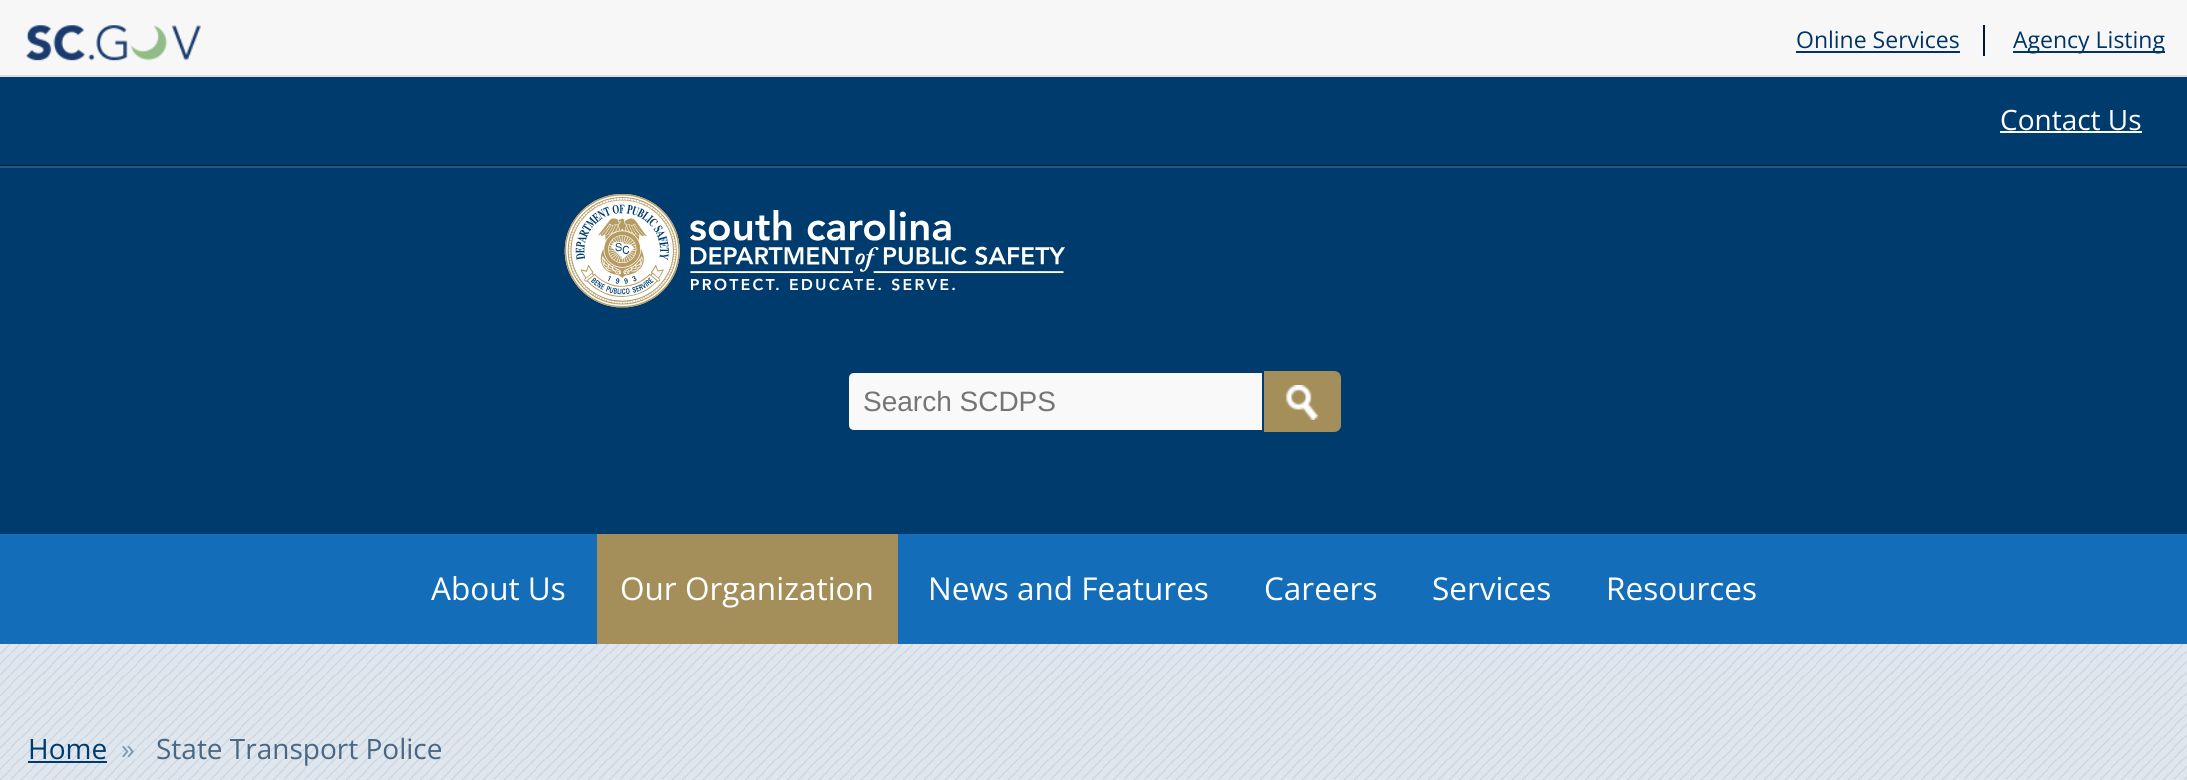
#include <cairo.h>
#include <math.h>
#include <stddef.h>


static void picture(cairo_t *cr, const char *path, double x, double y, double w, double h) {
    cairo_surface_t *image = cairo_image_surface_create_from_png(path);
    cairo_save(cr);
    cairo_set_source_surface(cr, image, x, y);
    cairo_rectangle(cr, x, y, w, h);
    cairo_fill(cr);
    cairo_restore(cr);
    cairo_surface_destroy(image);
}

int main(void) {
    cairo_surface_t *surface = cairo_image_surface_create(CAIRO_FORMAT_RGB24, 2187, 780);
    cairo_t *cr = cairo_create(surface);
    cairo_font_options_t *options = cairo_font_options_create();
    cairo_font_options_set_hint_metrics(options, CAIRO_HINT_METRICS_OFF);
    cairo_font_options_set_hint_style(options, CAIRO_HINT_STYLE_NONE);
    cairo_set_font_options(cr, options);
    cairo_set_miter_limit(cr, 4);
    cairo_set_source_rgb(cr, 0, 0.231, 0.427);
    cairo_paint(cr);
    cairo_set_source_rgb(cr, 0.965, 0.965, 0.965);
    cairo_rectangle(cr, 0, 0, 2187, 75);
    cairo_fill(cr);
    cairo_set_source_rgb(cr, 0.867, 0.867, 0.867);
    cairo_rectangle(cr, 0, 75, 2187, 2);
    cairo_fill(cr);
    picture(cr, "img1.png", 26, 25, 175, 36);
    cairo_select_font_face(cr, "Open Sans", CAIRO_FONT_SLANT_NORMAL, CAIRO_FONT_WEIGHT_NORMAL);
    cairo_set_font_size(cr, 23);
    cairo_set_source_rgb(cr, 0, 0.204, 0.4);
    cairo_move_to(cr, 1796, 48);
    cairo_show_text(cr, "Online Services");
    cairo_set_source_rgb(cr, 0, 0.09, 0.18);
    cairo_rectangle(cr, 1983, 25, 2, 31);
    cairo_fill(cr);
    cairo_set_source_rgb(cr, 0, 0.204, 0.4);
    cairo_rectangle(cr, 1796, 51, 164, 2);
    cairo_fill(cr);
    cairo_rectangle(cr, 2013, 51, 152, 2);
    cairo_fill(cr);
    cairo_move_to(cr, 2013, 48);
    cairo_show_text(cr, "Agency Listing");
    cairo_set_source_rgb(cr, 0, 0.122, 0.227);
    cairo_rectangle(cr, 0, 165, 2187, 1);
    cairo_fill(cr);
    cairo_set_font_size(cr, 28);
    cairo_set_source_rgb(cr, 1, 1, 1);
    cairo_move_to(cr, 2000, 130);
    cairo_show_text(cr, "Contact Us");
    cairo_rectangle(cr, 2000, 131, 142, 2);
    cairo_fill(cr);
    cairo_set_source_rgb(cr, 0.149, 0.345, 0.514);
    cairo_rectangle(cr, 0, 166, 2187, 2);
    cairo_fill(cr);
    picture(cr, "img2.png", 564, 194, 501, 114);
    cairo_set_source_rgb(cr, 0.976, 0.976, 0.973);
    cairo_new_path(cr);
    cairo_move_to(cr, 854, 372);
    cairo_line_to(cr, 1263, 372);
    cairo_line_to(cr, 1263, 431);
    cairo_line_to(cr, 854, 431);
    cairo_curve_to(cr, 850.5, 431, 848, 428.5, 848, 425);
    cairo_line_to(cr, 848, 378);
    cairo_curve_to(cr, 848, 374.5, 850.5, 372, 854, 372);
    cairo_close_path(cr);
    cairo_fill_preserve(cr);
    cairo_set_source_rgb(cr, 0, 0.231, 0.427);
    cairo_stroke(cr);
    cairo_select_font_face(cr, "Liberation Sans", CAIRO_FONT_SLANT_NORMAL, CAIRO_FONT_WEIGHT_NORMAL);
    cairo_set_source_rgb(cr, 0.459, 0.459, 0.459);
    cairo_move_to(cr, 863, 411);
    cairo_show_text(cr, "Search SCDPS");
    cairo_set_source_rgb(cr, 0.643, 0.561, 0.353);
    cairo_new_path(cr);
    cairo_move_to(cr, 1264, 371);
    cairo_line_to(cr, 1334, 371);
    cairo_curve_to(cr, 1338, 371, 1341, 374, 1341, 378);
    cairo_line_to(cr, 1341, 425);
    cairo_curve_to(cr, 1341, 429, 1338, 432, 1334, 432);
    cairo_line_to(cr, 1264, 432);
    cairo_close_path(cr);
    cairo_fill(cr);
    picture(cr, "img3.png", 1285, 385, 34, 35);
    cairo_set_source_rgb(cr, 0.075, 0.427, 0.725);
    cairo_rectangle(cr, 0, 534, 2187, 110);
    cairo_fill(cr);
    cairo_select_font_face(cr, "Open Sans", CAIRO_FONT_SLANT_NORMAL, CAIRO_FONT_WEIGHT_NORMAL);
    cairo_set_font_size(cr, 31.5);
    cairo_set_source_rgb(cr, 1, 1, 1);
    cairo_move_to(cr, 431, 600);
    cairo_show_text(cr, "About Us");
    cairo_set_source_rgb(cr, 0.643, 0.561, 0.353);
    cairo_rectangle(cr, 597, 534, 301, 110);
    cairo_fill(cr);
    cairo_set_source_rgb(cr, 1, 1, 1);
    cairo_move_to(cr, 620, 600);
    cairo_show_text(cr, "Our Organization");
    cairo_move_to(cr, 928, 600);
    cairo_show_text(cr, "News and Features");
    cairo_move_to(cr, 1264, 600);
    cairo_show_text(cr, "Careers");
    cairo_move_to(cr, 1432, 600);
    cairo_show_text(cr, "Services");
    cairo_move_to(cr, 1606, 600);
    cairo_show_text(cr, "Resources");
    cairo_set_source_rgb(cr, 0.875, 0.902, 0.929);
    cairo_rectangle(cr, 0, 644, 2187, 136);
    cairo_fill(cr);
    picture(cr, "img4.png", 0, 644, 2187, 136);
    cairo_set_font_size(cr, 28);
    cairo_set_source_rgb(cr, 0, 0.231, 0.427);
    cairo_move_to(cr, 28, 759);
    cairo_show_text(cr, "Home");
    cairo_rectangle(cr, 28, 761, 79, 2);
    cairo_fill(cr);
    cairo_set_source_rgb(cr, 0.49, 0.604, 0.714);
    cairo_move_to(cr, 121, 759);
    cairo_show_text(cr, "»");
    cairo_set_source_rgb(cr, 0.29, 0.404, 0.514);
    cairo_move_to(cr, 156, 759);
    cairo_show_text(cr, "State Transport Police");
    cairo_surface_write_to_png(surface, "page.png");
    cairo_font_options_destroy(options);
    cairo_destroy(cr);
    cairo_surface_destroy(surface);
    return 0;
}
